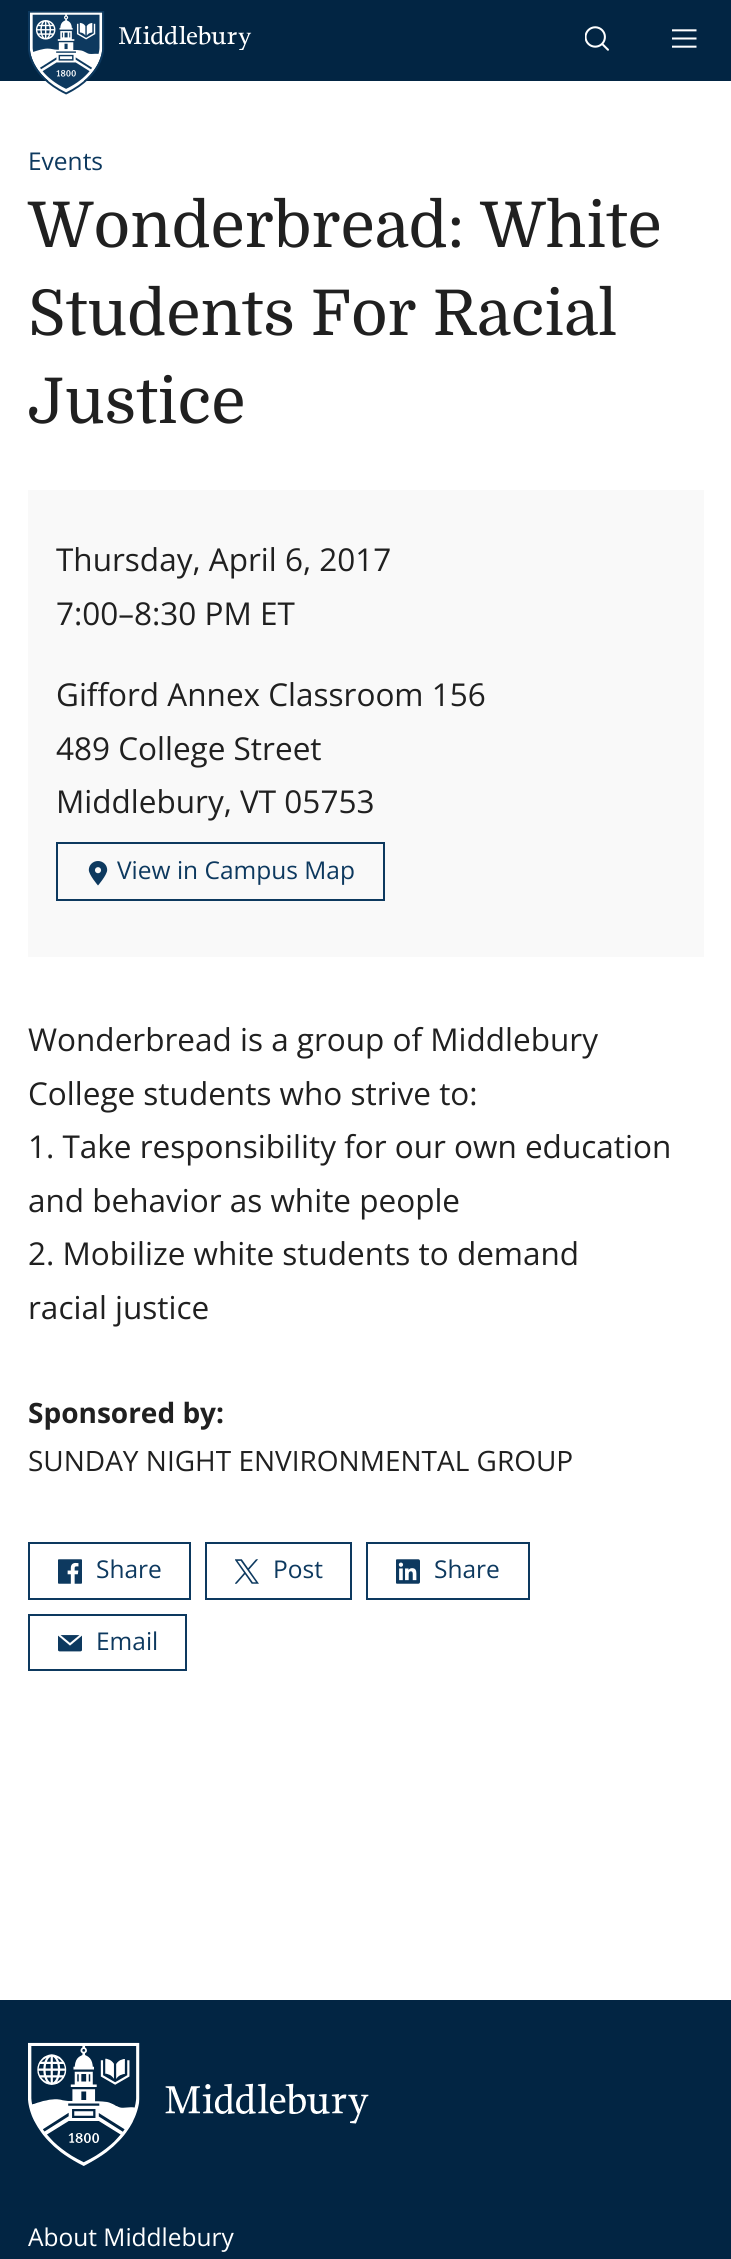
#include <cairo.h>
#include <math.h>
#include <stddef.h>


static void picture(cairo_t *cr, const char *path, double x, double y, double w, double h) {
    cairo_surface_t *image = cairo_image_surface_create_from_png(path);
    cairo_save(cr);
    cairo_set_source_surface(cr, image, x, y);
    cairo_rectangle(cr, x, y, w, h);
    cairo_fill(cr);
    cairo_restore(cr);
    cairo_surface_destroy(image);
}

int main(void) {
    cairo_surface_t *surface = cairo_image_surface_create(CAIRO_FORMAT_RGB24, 731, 2259);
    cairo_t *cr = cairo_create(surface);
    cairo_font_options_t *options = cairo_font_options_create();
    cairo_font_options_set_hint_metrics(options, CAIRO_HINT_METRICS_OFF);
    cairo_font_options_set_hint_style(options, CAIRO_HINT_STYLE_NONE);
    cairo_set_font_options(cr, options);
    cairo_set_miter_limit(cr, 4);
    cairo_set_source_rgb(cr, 1, 1, 1);
    cairo_paint(cr);
    cairo_set_source_rgb(cr, 0.008, 0.145, 0.263);
    cairo_rectangle(cr, 0, 0, 731, 81);
    cairo_fill(cr);
    picture(cr, "img1.png", 28, 11, 77, 84);
    picture(cr, "img2.png", 119, 26, 133, 24);
    picture(cr, "img3.png", 585, 26, 24, 25);
    picture(cr, "img4.png", 672, 29, 25, 19);
    cairo_select_font_face(cr, "Open Sans", CAIRO_FONT_SLANT_NORMAL, CAIRO_FONT_WEIGHT_NORMAL);
    cairo_set_font_size(cr, 24.5);
    cairo_set_source_rgb(cr, 0.051, 0.224, 0.373);
    cairo_move_to(cr, 28, 170);
    cairo_show_text(cr, "Events");
    cairo_select_font_face(cr, "Domine", CAIRO_FONT_SLANT_NORMAL, CAIRO_FONT_WEIGHT_NORMAL);
    cairo_set_font_size(cr, 63);
    cairo_set_source_rgb(cr, 0.125, 0.125, 0.125);
    cairo_move_to(cr, 28, 247);
    cairo_show_text(cr, "Wonderbread: White");
    cairo_move_to(cr, 28, 335);
    cairo_show_text(cr, "Students For Racial");
    cairo_move_to(cr, 28, 423);
    cairo_show_text(cr, "Justice");
    cairo_set_source_rgb(cr, 0.973, 0.973, 0.973);
    cairo_rectangle(cr, 28, 490, 676, 467);
    cairo_fill(cr);
    cairo_select_font_face(cr, "Open Sans", CAIRO_FONT_SLANT_NORMAL, CAIRO_FONT_WEIGHT_NORMAL);
    cairo_set_font_size(cr, 31.5);
    cairo_set_source_rgb(cr, 0.125, 0.125, 0.125);
    cairo_move_to(cr, 56, 571);
    cairo_show_text(cr, "Thursday, April 6, 2017");
    cairo_move_to(cr, 56, 625);
    cairo_show_text(cr, "7:00–8:30 PM ET");
    cairo_move_to(cr, 56, 706);
    cairo_show_text(cr, "Gifford Annex Classroom 156");
    cairo_move_to(cr, 56, 760);
    cairo_show_text(cr, "489 College Street");
    cairo_move_to(cr, 56, 813);
    cairo_show_text(cr, "Middlebury, VT 05753");
    cairo_rectangle(cr, 57, 843, 327, 57);
    cairo_set_source_rgb(cr, 0.051, 0.224, 0.373);
    cairo_stroke(cr);
    picture(cr, "img5.png", 88, 861, 20, 25);
    cairo_set_font_size(cr, 24.5);
    cairo_move_to(cr, 117, 879);
    cairo_show_text(cr, "View in Campus Map");
    cairo_set_font_size(cr, 31.5);
    cairo_set_source_rgb(cr, 0.125, 0.125, 0.125);
    cairo_move_to(cr, 28, 1051);
    cairo_show_text(cr, "Wonderbread is a group of Middlebury");
    cairo_move_to(cr, 28, 1105);
    cairo_show_text(cr, "College students who strive to:");
    cairo_move_to(cr, 28, 1158);
    cairo_show_text(cr, "1. Take responsibility for our own education");
    cairo_move_to(cr, 28, 1212);
    cairo_show_text(cr, "and behavior as white people");
    cairo_move_to(cr, 28, 1265);
    cairo_show_text(cr, "2. Mobilize white students to demand");
    cairo_move_to(cr, 28, 1319);
    cairo_show_text(cr, "racial justice");
    cairo_select_font_face(cr, "Open Sans", CAIRO_FONT_SLANT_NORMAL, CAIRO_FONT_WEIGHT_BOLD);
    cairo_set_font_size(cr, 28);
    cairo_move_to(cr, 28, 1423);
    cairo_show_text(cr, "Sponsored by:");
    cairo_select_font_face(cr, "Open Sans", CAIRO_FONT_SLANT_NORMAL, CAIRO_FONT_WEIGHT_NORMAL);
    cairo_move_to(cr, 28, 1471);
    cairo_show_text(cr, "SUNDAY NIGHT ENVIRONMENTAL GROUP");
    cairo_rectangle(cr, 29, 1543, 161, 56);
    cairo_set_source_rgb(cr, 0.051, 0.224, 0.373);
    cairo_stroke(cr);
    picture(cr, "img6.png", 58, 1559, 24, 25);
    cairo_set_font_size(cr, 24.5);
    cairo_move_to(cr, 96, 1578);
    cairo_show_text(cr, "Share");
    cairo_rectangle(cr, 206, 1543, 145, 56);
    cairo_stroke(cr);
    picture(cr, "img7.png", 235, 1559, 24, 25);
    cairo_move_to(cr, 273, 1578);
    cairo_show_text(cr, "Post");
    cairo_rectangle(cr, 367, 1543, 162, 56);
    cairo_stroke(cr);
    picture(cr, "img8.png", 396, 1559, 24, 25);
    cairo_move_to(cr, 434, 1578);
    cairo_show_text(cr, "Share");
    cairo_rectangle(cr, 29, 1615, 157, 55);
    cairo_stroke(cr);
    picture(cr, "img9.png", 58, 1635, 24, 17);
    cairo_move_to(cr, 96, 1650);
    cairo_show_text(cr, "Email");
    cairo_set_source_rgb(cr, 0.008, 0.145, 0.263);
    cairo_rectangle(cr, 0, 2000, 731, 259);
    cairo_fill(cr);
    picture(cr, "img10.png", 28, 2042, 341, 124);
    cairo_set_source_rgb(cr, 1, 1, 1);
    cairo_move_to(cr, 28, 2246);
    cairo_show_text(cr, "About Middlebury");
    cairo_surface_write_to_png(surface, "page.png");
    cairo_font_options_destroy(options);
    cairo_destroy(cr);
    cairo_surface_destroy(surface);
    return 0;
}
